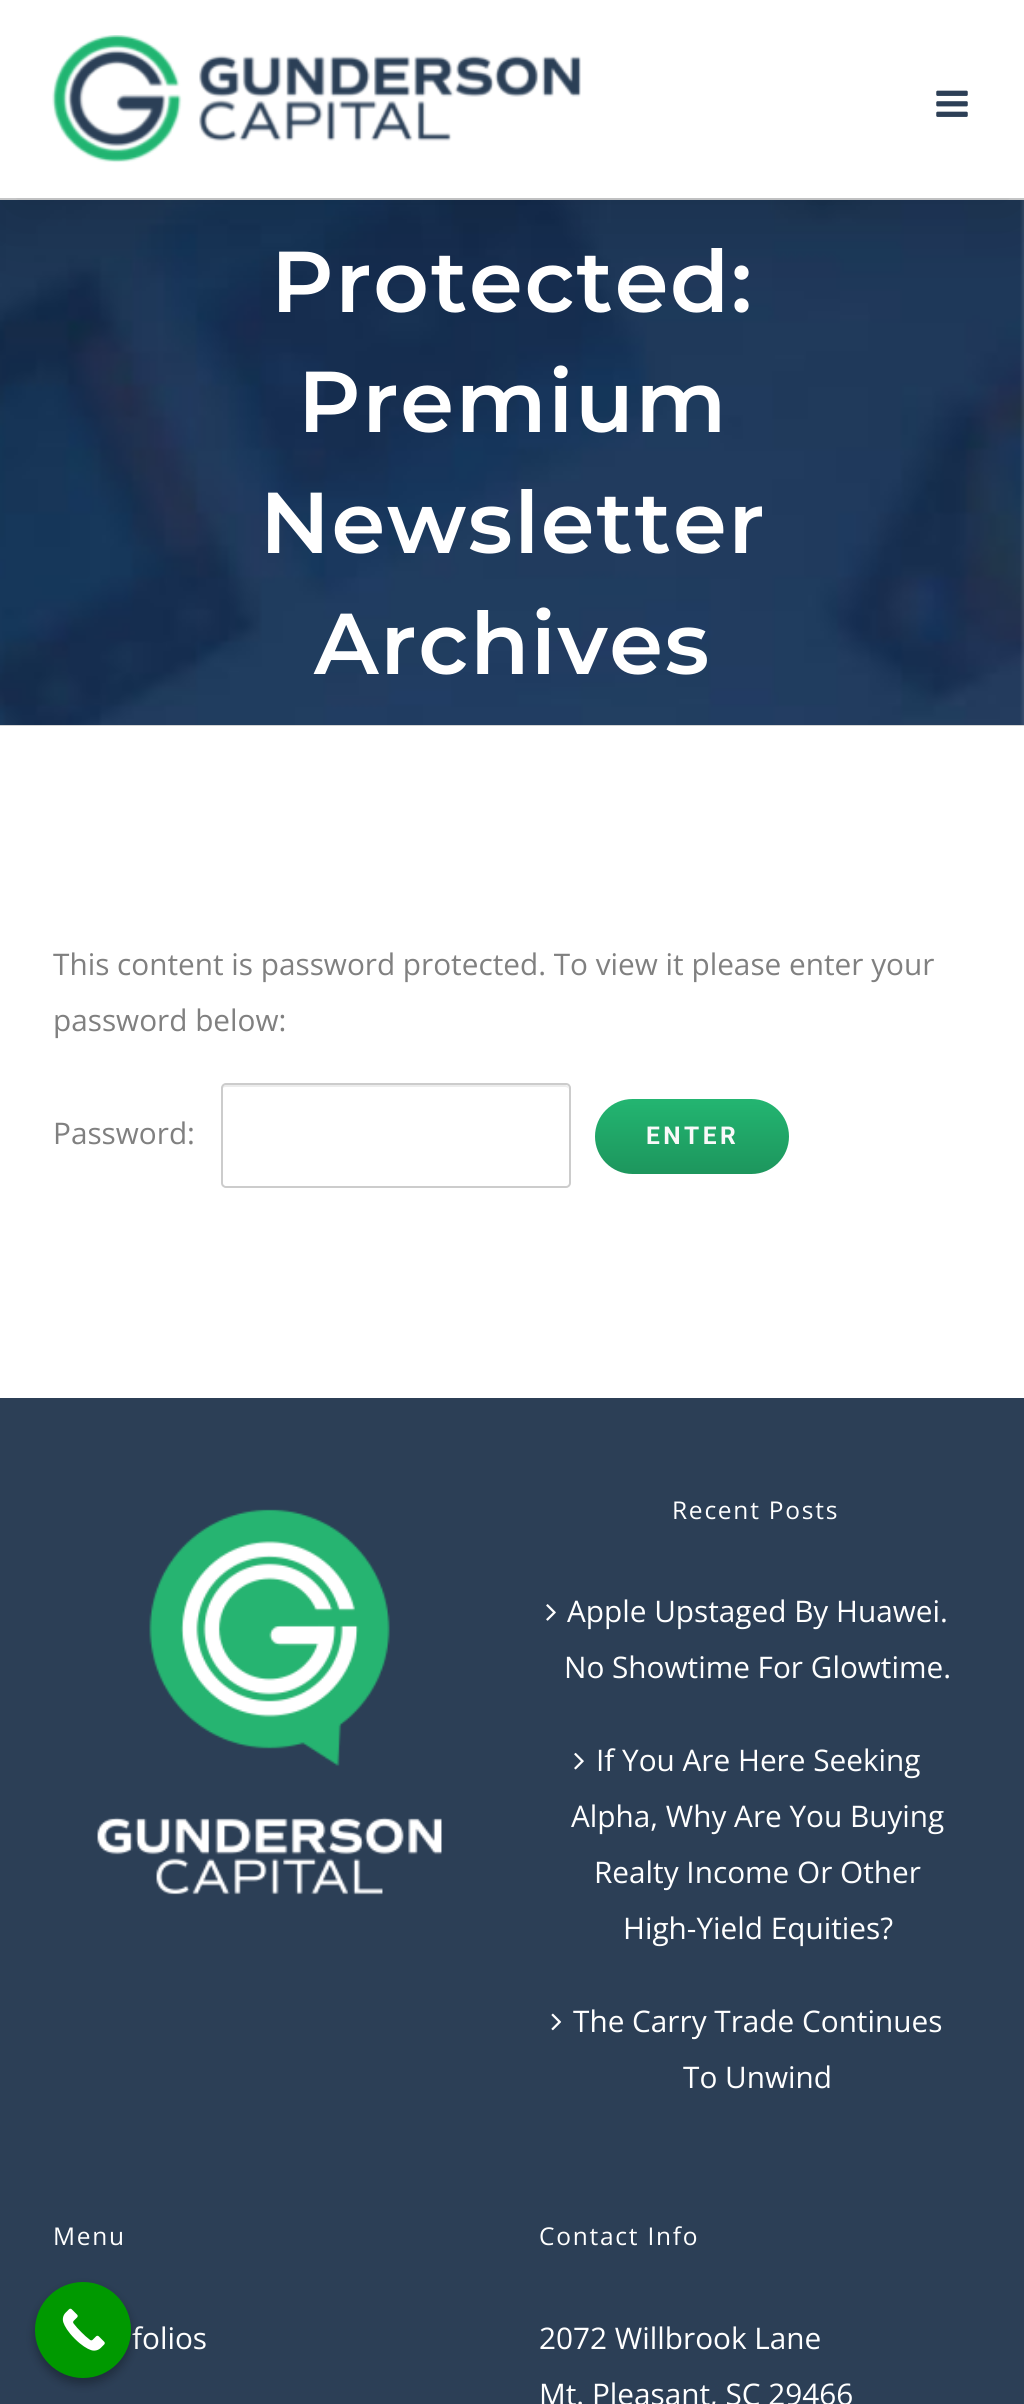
#include <cairo.h>
#include <math.h>
#include <stddef.h>


static void spaced_text(cairo_t *cr, double x, double y, const char *s, double letter, double word) {
    cairo_move_to(cr, x, y);
    while (*s) {
        char ch[5] = {0};
        int n = 0;
        do ch[n++] = *s++; while ((*s & 0xC0) == 0x80);
        cairo_show_text(cr, ch);
        cairo_rel_move_to(cr, letter + word * (*ch == ' '), 0);
    }
}

static void round_rect(cairo_t *cr, double x, double y, double w, double h, double r) {
    cairo_new_sub_path(cr);
    cairo_arc(cr, x + w - r, y + h - r, r, 0, M_PI / 2);
    cairo_arc(cr, x + r, y + h - r, r, M_PI / 2, M_PI);
    cairo_arc(cr, x + r, y + r, r, M_PI, 1.5 * M_PI);
    cairo_arc(cr, x + w - r, y + r, r, 1.5 * M_PI, 2 * M_PI);
    cairo_close_path(cr);
}

static void shadow(cairo_t *cr, double x, double y, double w, double h, double r, double blur, double alpha) {
    cairo_push_group_with_content(cr, CAIRO_CONTENT_ALPHA);
    cairo_set_operator(cr, CAIRO_OPERATOR_SOURCE);
    for (int i = 15; i >= -15 && fmin(w, h) + blur * i / 3 > 0; i -= 2) {
        double e = blur * i / 6;
        cairo_set_source_rgba(cr, 0, 0, 0, alpha * erfc((i - 1) / 8.5) / 2);
        round_rect(cr, x - e, y - e, w + 2 * e, h + 2 * e, fmax(0, fmin(r + e + blur * .6, fmin(w, h) / 2 + e)));
        cairo_fill(cr);
    }
    cairo_pattern_t *soft = cairo_pop_group(cr);
    cairo_mask(cr, soft);
    cairo_pattern_destroy(soft);
}

static void picture(cairo_t *cr, const char *path, double x, double y, double w, double h) {
    cairo_surface_t *image = cairo_image_surface_create_from_png(path);
    cairo_save(cr);
    cairo_set_source_surface(cr, image, x, y);
    cairo_rectangle(cr, x, y, w, h);
    cairo_fill(cr);
    cairo_restore(cr);
    cairo_surface_destroy(image);
}

int main(void) {
    cairo_surface_t *surface = cairo_image_surface_create(CAIRO_FORMAT_RGB24, 1024, 2404);
    cairo_t *cr = cairo_create(surface);
    cairo_font_options_t *options = cairo_font_options_create();
    cairo_font_options_set_hint_metrics(options, CAIRO_HINT_METRICS_OFF);
    cairo_font_options_set_hint_style(options, CAIRO_HINT_STYLE_NONE);
    cairo_set_font_options(cr, options);
    cairo_set_miter_limit(cr, 4);
    cairo_pattern_t *gradient;
    cairo_set_source_rgb(cr, 1, 1, 1);
    cairo_paint(cr);
    picture(cr, "img3.png", 0, 200, 1024, 525);
    cairo_set_source_rgb(cr, 0.824, 0.827, 0.831);
    cairo_rectangle(cr, 0, 198, 1024, 2);
    cairo_fill(cr);
    cairo_set_source_rgb(cr, 0, 0, 0);
    shadow(cr, 4, 21, 1018, 191, 0, 44, 0.14);
    cairo_set_source_rgb(cr, 1, 1, 1);
    cairo_rectangle(cr, 0, 0, 1024, 198);
    cairo_fill(cr);
    picture(cr, "img1.png", 52, 35, 529, 128);
    picture(cr, "img2.png", 936, 90, 32, 27);
    cairo_set_source_rgb(cr, 0.824, 0.827, 0.831);
    cairo_rectangle(cr, 0, 725, 1024, 1);
    cairo_fill(cr);
    cairo_select_font_face(cr, "Montserrat Thin", CAIRO_FONT_SLANT_NORMAL, CAIRO_FONT_WEIGHT_NORMAL);
    cairo_set_font_size(cr, 86.25);
    cairo_set_source_rgb(cr, 1, 1, 1);
    spaced_text(cr, 271, 312, "Protected:", 1.75, 0);
    spaced_text(cr, 298, 432, "Premium", 1.75, 0);
    spaced_text(cr, 260, 553, "Newsletter", 1.75, 0);
    spaced_text(cr, 314, 674, "Archives", 1.75, 0);
    cairo_select_font_face(cr, "Open Sans", CAIRO_FONT_SLANT_NORMAL, CAIRO_FONT_WEIGHT_NORMAL);
    cairo_set_font_size(cr, 29.75);
    cairo_set_source_rgb(cr, 0.502, 0.502, 0.502);
    cairo_move_to(cr, 53, 975);
    cairo_show_text(cr, "This content is password protected. To view it please enter your");
    cairo_move_to(cr, 53, 1031);
    cairo_show_text(cr, "password below:");
    cairo_move_to(cr, 53, 1144);
    cairo_show_text(cr, "Password:");
    cairo_set_source_rgb(cr, 0.925, 0.925, 0.925);
    cairo_new_path(cr);
    cairo_move_to(cr, 226, 1087);
    cairo_line_to(cr, 565, 1087);
    cairo_curve_to(cr, 567, 1087, 569, 1088, 569, 1090);
    cairo_line_to(cr, 569, 1089);
    cairo_curve_to(cr, 569, 1087, 567, 1085, 565, 1085);
    cairo_line_to(cr, 226, 1085);
    cairo_curve_to(cr, 224, 1085, 222, 1087, 222, 1089);
    cairo_line_to(cr, 222, 1090);
    cairo_curve_to(cr, 222, 1088, 224, 1087, 226, 1087);
    cairo_close_path(cr);
    cairo_fill(cr);
    round_rect(cr, 222, 1084, 348, 103, 4);
    cairo_set_source_rgb(cr, 0.8, 0.8, 0.8);
    cairo_stroke(cr);
    gradient = cairo_pattern_create_linear(692, 1099, 692, 1174);
    cairo_pattern_add_color_stop_rgba(gradient, 0, 0.137, 0.71, 0.443, 1);
    cairo_pattern_add_color_stop_rgba(gradient, 1, 0.114, 0.588, 0.365, 1);
    cairo_set_source(cr, gradient);
    cairo_pattern_destroy(gradient);
    round_rect(cr, 595, 1099, 194, 75, 37.5);
    cairo_fill(cr);
    cairo_select_font_face(cr, "Roboto", CAIRO_FONT_SLANT_NORMAL, CAIRO_FONT_WEIGHT_BOLD);
    cairo_set_font_size(cr, 24.5);
    cairo_set_source_rgb(cr, 0.976, 0.976, 0.976);
    spaced_text(cr, 646, 1144, "ENTER", 3.5, 0);
    cairo_set_source_rgb(cr, 0.173, 0.247, 0.337);
    cairo_rectangle(cr, 0, 1398, 1024, 1006);
    cairo_fill(cr);
    picture(cr, "img4.png", 97, 1509, 345, 386);
    cairo_select_font_face(cr, "Open Sans", CAIRO_FONT_SLANT_NORMAL, CAIRO_FONT_WEIGHT_NORMAL);
    cairo_set_source_rgb(cr, 1, 1, 1);
    spaced_text(cr, 672, 1519, "Recent Posts", 1.75, 0);
    picture(cr, "img5.png", 546, 1604, 10, 17);
    cairo_set_font_size(cr, 29.75);
    cairo_move_to(cr, 567, 1622);
    cairo_show_text(cr, "Apple Upstaged By Huawei.");
    cairo_move_to(cr, 564, 1678);
    cairo_show_text(cr, "No Showtime For Glowtime.");
    picture(cr, "img6.png", 574, 1752, 10, 18);
    cairo_move_to(cr, 596, 1771);
    cairo_show_text(cr, "If You Are Here Seeking");
    cairo_move_to(cr, 571, 1827);
    cairo_show_text(cr, "Alpha, Why Are You Buying");
    cairo_move_to(cr, 594, 1883);
    cairo_show_text(cr, "Realty Income Or Other");
    cairo_move_to(cr, 623, 1939);
    cairo_show_text(cr, "High-Yield Equities?");
    picture(cr, "img7.png", 551, 2013, 11, 18);
    cairo_move_to(cr, 573, 2032);
    cairo_show_text(cr, "The Carry Trade Continues");
    cairo_move_to(cr, 683, 2088);
    cairo_show_text(cr, "To Unwind");
    cairo_set_font_size(cr, 24.5);
    spaced_text(cr, 53, 2245, "Menu", 1.75, 0);
    cairo_set_font_size(cr, 29.75);
    cairo_move_to(cr, 132, 2349);
    cairo_show_text(cr, "folios");
    cairo_set_font_size(cr, 24.5);
    spaced_text(cr, 539, 2245, "Contact Info", 1.75, 0);
    cairo_set_font_size(cr, 29.75);
    cairo_move_to(cr, 539, 2349);
    cairo_show_text(cr, "2072 Willbrook Lane");
    cairo_move_to(cr, 539, 2405);
    cairo_show_text(cr, "Mt. Pleasant, SC 29466");
    cairo_set_source_rgb(cr, 0, 0, 0);
    shadow(cr, 35, 2287, 96, 97, 48, 5, 0.3);
    cairo_set_source_rgb(cr, 0, 0.6, 0);
    cairo_arc(cr, 83, 2330, 48, 0, 2 * M_PI);
    cairo_fill(cr);
    picture(cr, "img8.png", 62, 2308, 43, 43);
    cairo_surface_write_to_png(surface, "page.png");
    cairo_font_options_destroy(options);
    cairo_destroy(cr);
    cairo_surface_destroy(surface);
    return 0;
}
